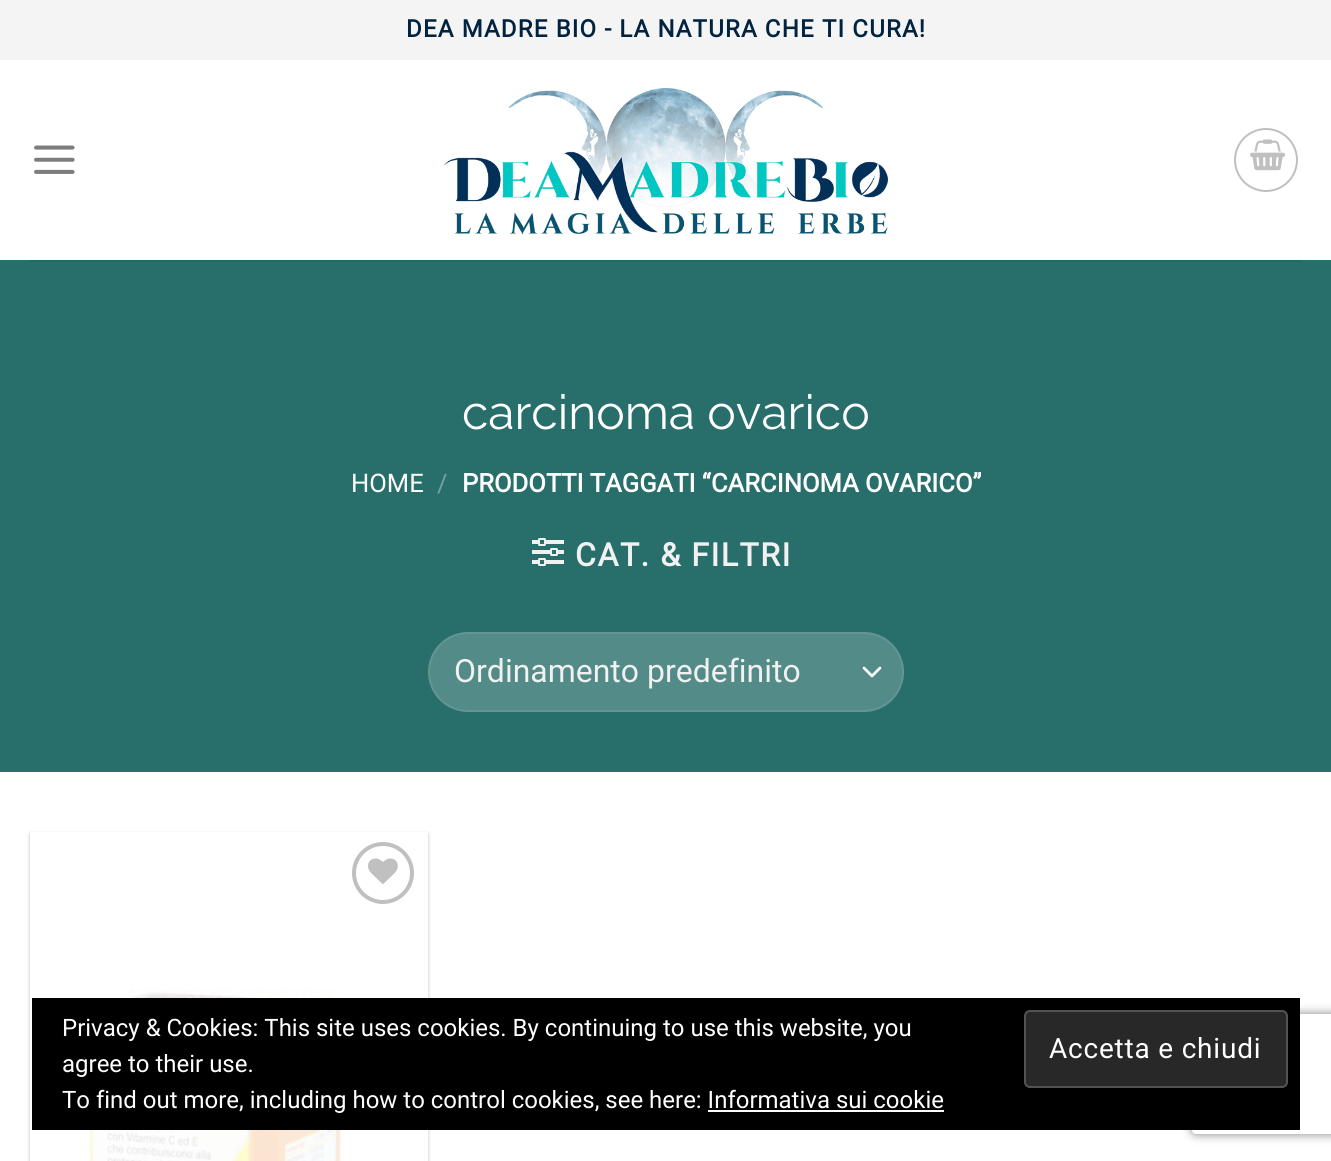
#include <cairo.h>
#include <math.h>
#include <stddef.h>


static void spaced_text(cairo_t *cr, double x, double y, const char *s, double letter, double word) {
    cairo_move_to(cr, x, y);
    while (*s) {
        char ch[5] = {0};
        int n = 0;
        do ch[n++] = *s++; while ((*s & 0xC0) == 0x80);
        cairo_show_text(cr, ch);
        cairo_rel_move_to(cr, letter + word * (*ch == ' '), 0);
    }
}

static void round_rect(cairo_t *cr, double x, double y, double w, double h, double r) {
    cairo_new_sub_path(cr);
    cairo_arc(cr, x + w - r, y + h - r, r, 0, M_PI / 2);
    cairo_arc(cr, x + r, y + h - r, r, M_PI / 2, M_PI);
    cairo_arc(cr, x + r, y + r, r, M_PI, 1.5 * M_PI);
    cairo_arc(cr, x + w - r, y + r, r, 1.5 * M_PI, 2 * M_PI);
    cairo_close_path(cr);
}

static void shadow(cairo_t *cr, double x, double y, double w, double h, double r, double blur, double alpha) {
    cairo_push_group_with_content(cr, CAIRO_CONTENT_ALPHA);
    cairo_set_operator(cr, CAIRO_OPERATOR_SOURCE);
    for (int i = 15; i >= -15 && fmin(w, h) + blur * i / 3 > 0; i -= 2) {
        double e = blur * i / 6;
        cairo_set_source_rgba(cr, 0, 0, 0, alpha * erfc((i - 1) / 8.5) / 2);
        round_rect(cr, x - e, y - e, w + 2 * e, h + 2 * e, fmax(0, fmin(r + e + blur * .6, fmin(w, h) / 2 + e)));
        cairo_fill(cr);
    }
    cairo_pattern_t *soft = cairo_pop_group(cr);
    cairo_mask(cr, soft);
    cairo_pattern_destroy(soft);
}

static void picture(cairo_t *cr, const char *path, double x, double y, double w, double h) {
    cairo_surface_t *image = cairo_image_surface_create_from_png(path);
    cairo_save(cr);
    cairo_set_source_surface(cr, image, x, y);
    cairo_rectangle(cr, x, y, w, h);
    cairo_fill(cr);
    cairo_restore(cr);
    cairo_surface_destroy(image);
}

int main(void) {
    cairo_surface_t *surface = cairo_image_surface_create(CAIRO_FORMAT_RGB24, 1331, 1161);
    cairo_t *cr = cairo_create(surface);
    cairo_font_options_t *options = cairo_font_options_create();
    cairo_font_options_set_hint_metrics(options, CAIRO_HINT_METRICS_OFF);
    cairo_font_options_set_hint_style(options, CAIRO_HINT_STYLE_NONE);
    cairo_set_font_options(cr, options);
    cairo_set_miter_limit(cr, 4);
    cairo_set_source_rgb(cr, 1, 1, 1);
    cairo_paint(cr);
    cairo_set_source_rgb(cr, 0.957, 0.957, 0.957);
    cairo_rectangle(cr, 0, 0, 1331, 60);
    cairo_fill(cr);
    cairo_select_font_face(cr, "Roboto", CAIRO_FONT_SLANT_NORMAL, CAIRO_FONT_WEIGHT_BOLD);
    cairo_set_font_size(cr, 24);
    cairo_set_source_rgb(cr, 0.004, 0.137, 0.251);
    spaced_text(cr, 406, 37, "DEA MADRE BIO - LA NATURA CHE TI CURA!", 1.2, 0);
    picture(cr, "img1.png", 34, 145, 41, 29);
    picture(cr, "img2.png", 444, 88, 444, 146);
    cairo_arc(cr, 1266, 160, 31, 0, 2 * M_PI);
    cairo_set_source_rgb(cr, 0.753, 0.753, 0.753);
    cairo_stroke(cr);
    picture(cr, "img3.png", 1250, 139, 35, 32);
    cairo_set_source_rgb(cr, 0.157, 0.431, 0.42);
    cairo_rectangle(cr, 0, 260, 1331, 512);
    cairo_fill(cr);
    cairo_set_source_rgb(cr, 0.141, 0.404, 0.404);
    cairo_rectangle(cr, 30, 260, 1272, 2);
    cairo_fill(cr);
    cairo_select_font_face(cr, "Raleway Thin", CAIRO_FONT_SLANT_NORMAL, CAIRO_FONT_WEIGHT_NORMAL);
    cairo_set_font_size(cr, 48);
    cairo_set_source_rgb(cr, 1, 1, 1);
    cairo_move_to(cr, 462, 429);
    cairo_show_text(cr, "carcinoma ovarico");
    cairo_select_font_face(cr, "Roboto", CAIRO_FONT_SLANT_NORMAL, CAIRO_FONT_WEIGHT_NORMAL);
    cairo_set_font_size(cr, 25.6);
    cairo_move_to(cr, 351, 492);
    cairo_show_text(cr, "HOME");
    cairo_set_source_rgb(cr, 0.451, 0.631, 0.624);
    cairo_move_to(cr, 437, 492);
    cairo_show_text(cr, "/");
    cairo_select_font_face(cr, "Roboto", CAIRO_FONT_SLANT_NORMAL, CAIRO_FONT_WEIGHT_BOLD);
    cairo_set_source_rgb(cr, 1, 1, 1);
    cairo_move_to(cr, 462, 492);
    cairo_show_text(cr, "PRODOTTI TAGGATI “CARCINOMA OVARICO”");
    picture(cr, "img4.png", 532, 538, 32, 28);
    cairo_set_font_size(cr, 32);
    cairo_set_source_rgb(cr, 0.945, 0.945, 0.945);
    spaced_text(cr, 575, 566, "CAT. & FILTRI", 1.6, 0);
    cairo_set_source_rgb(cr, 0.325, 0.545, 0.537);
    round_rect(cr, 428, 632, 476, 80, 40);
    cairo_fill(cr);
    cairo_new_path(cr);
    cairo_move_to(cr, 864, 668);
    cairo_line_to(cr, 872, 676);
    cairo_line_to(cr, 880, 668);
    cairo_set_source_rgb(cr, 1, 1, 1);
    cairo_set_line_width(cr, 2.7);
    cairo_set_line_cap(cr, CAIRO_LINE_CAP_ROUND);
    cairo_set_line_join(cr, CAIRO_LINE_JOIN_ROUND);
    cairo_stroke(cr);
    round_rect(cr, 429, 633, 474, 78, 39);
    cairo_set_source_rgba(cr, 1, 1, 1, 0.09);
    cairo_set_line_width(cr, 2);
    cairo_set_line_cap(cr, CAIRO_LINE_CAP_BUTT);
    cairo_set_line_join(cr, CAIRO_LINE_JOIN_MITER);
    cairo_stroke(cr);
    cairo_select_font_face(cr, "Roboto", CAIRO_FONT_SLANT_NORMAL, CAIRO_FONT_WEIGHT_NORMAL);
    cairo_set_source_rgb(cr, 0.945, 0.945, 0.945);
    cairo_move_to(cr, 454, 682);
    cairo_show_text(cr, "Ordinamento predefinito");
    cairo_save(cr);
    cairo_set_fill_rule(cr, CAIRO_FILL_RULE_EVEN_ODD);
    cairo_new_path(cr);
    cairo_move_to(cr, 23, 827);
    cairo_line_to(cr, 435, 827);
    cairo_line_to(cr, 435, 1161);
    cairo_line_to(cr, 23, 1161);
    cairo_close_path(cr);
    cairo_move_to(cr, 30, 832);
    cairo_line_to(cr, 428, 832);
    cairo_line_to(cr, 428, 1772);
    cairo_line_to(cr, 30, 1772);
    cairo_close_path(cr);
    cairo_clip(cr);
    cairo_set_source_rgb(cr, 0, 0, 0);
    shadow(cr, 30, 834, 398, 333, 0, 2, 0.24);
    cairo_restore(cr);
    cairo_arc(cr, 383, 873, 29, 0, 2 * M_PI);
    cairo_set_source_rgb(cr, 0.753, 0.753, 0.753);
    cairo_set_line_width(cr, 4);
    cairo_stroke(cr);
    picture(cr, "img5.png", 368, 858, 30, 26);
    picture(cr, "img6.png", 83, 989, 270, 172);
    cairo_set_source_rgba(cr, 1, 1, 1, 0.81);
    cairo_rectangle(cr, 84, 1108, 267, 53);
    cairo_fill(cr);
    cairo_save(cr);
    cairo_set_fill_rule(cr, CAIRO_FILL_RULE_EVEN_ODD);
    cairo_new_path(cr);
    cairo_move_to(cr, 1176, 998);
    cairo_line_to(cr, 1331, 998);
    cairo_line_to(cr, 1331, 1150);
    cairo_line_to(cr, 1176, 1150);
    cairo_close_path(cr);
    cairo_move_to(cr, 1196, 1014);
    cairo_line_to(cr, 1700, 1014);
    cairo_curve_to(cr, 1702, 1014, 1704, 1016, 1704, 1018);
    cairo_line_to(cr, 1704, 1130);
    cairo_curve_to(cr, 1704, 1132, 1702, 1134, 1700, 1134);
    cairo_line_to(cr, 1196, 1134);
    cairo_curve_to(cr, 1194, 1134, 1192, 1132, 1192, 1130);
    cairo_line_to(cr, 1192, 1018);
    cairo_curve_to(cr, 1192, 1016, 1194, 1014, 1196, 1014);
    cairo_close_path(cr);
    cairo_clip(cr);
    cairo_set_source_rgb(cr, 0.502, 0.502, 0.502);
    shadow(cr, 1192, 1014, 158, 120, 4, 5, 1);
    cairo_restore(cr);
    cairo_set_source_rgb(cr, 0, 0, 0);
    cairo_rectangle(cr, 32, 998, 1268, 132);
    cairo_fill(cr);
    cairo_set_font_size(cr, 24);
    cairo_set_source_rgb(cr, 1, 1, 1);
    cairo_move_to(cr, 62, 1036);
    cairo_show_text(cr, "Privacy & Cookies: This site uses cookies. By continuing to use this website, you");
    cairo_set_source_rgb(cr, 0.157, 0.157, 0.157);
    round_rect(cr, 1025, 1011, 262, 76, 5);
    cairo_fill_preserve(cr);
    cairo_set_source_rgb(cr, 0.325, 0.325, 0.325);
    cairo_set_line_width(cr, 2);
    cairo_stroke(cr);
    cairo_set_font_size(cr, 28);
    cairo_set_source_rgb(cr, 1, 1, 1);
    spaced_text(cr, 1049, 1058, "Accetta e chiudi", 0.8, 0);
    cairo_set_font_size(cr, 24);
    cairo_move_to(cr, 62, 1072);
    cairo_show_text(cr, "agree to their use.");
    cairo_move_to(cr, 62, 1108);
    cairo_show_text(cr, "To find out more, including how to control cookies, see here: Informativa sui cookie");
    cairo_rectangle(cr, 708, 1110, 236, 2);
    cairo_fill(cr);
    cairo_surface_write_to_png(surface, "page.png");
    cairo_font_options_destroy(options);
    cairo_destroy(cr);
    cairo_surface_destroy(surface);
    return 0;
}
